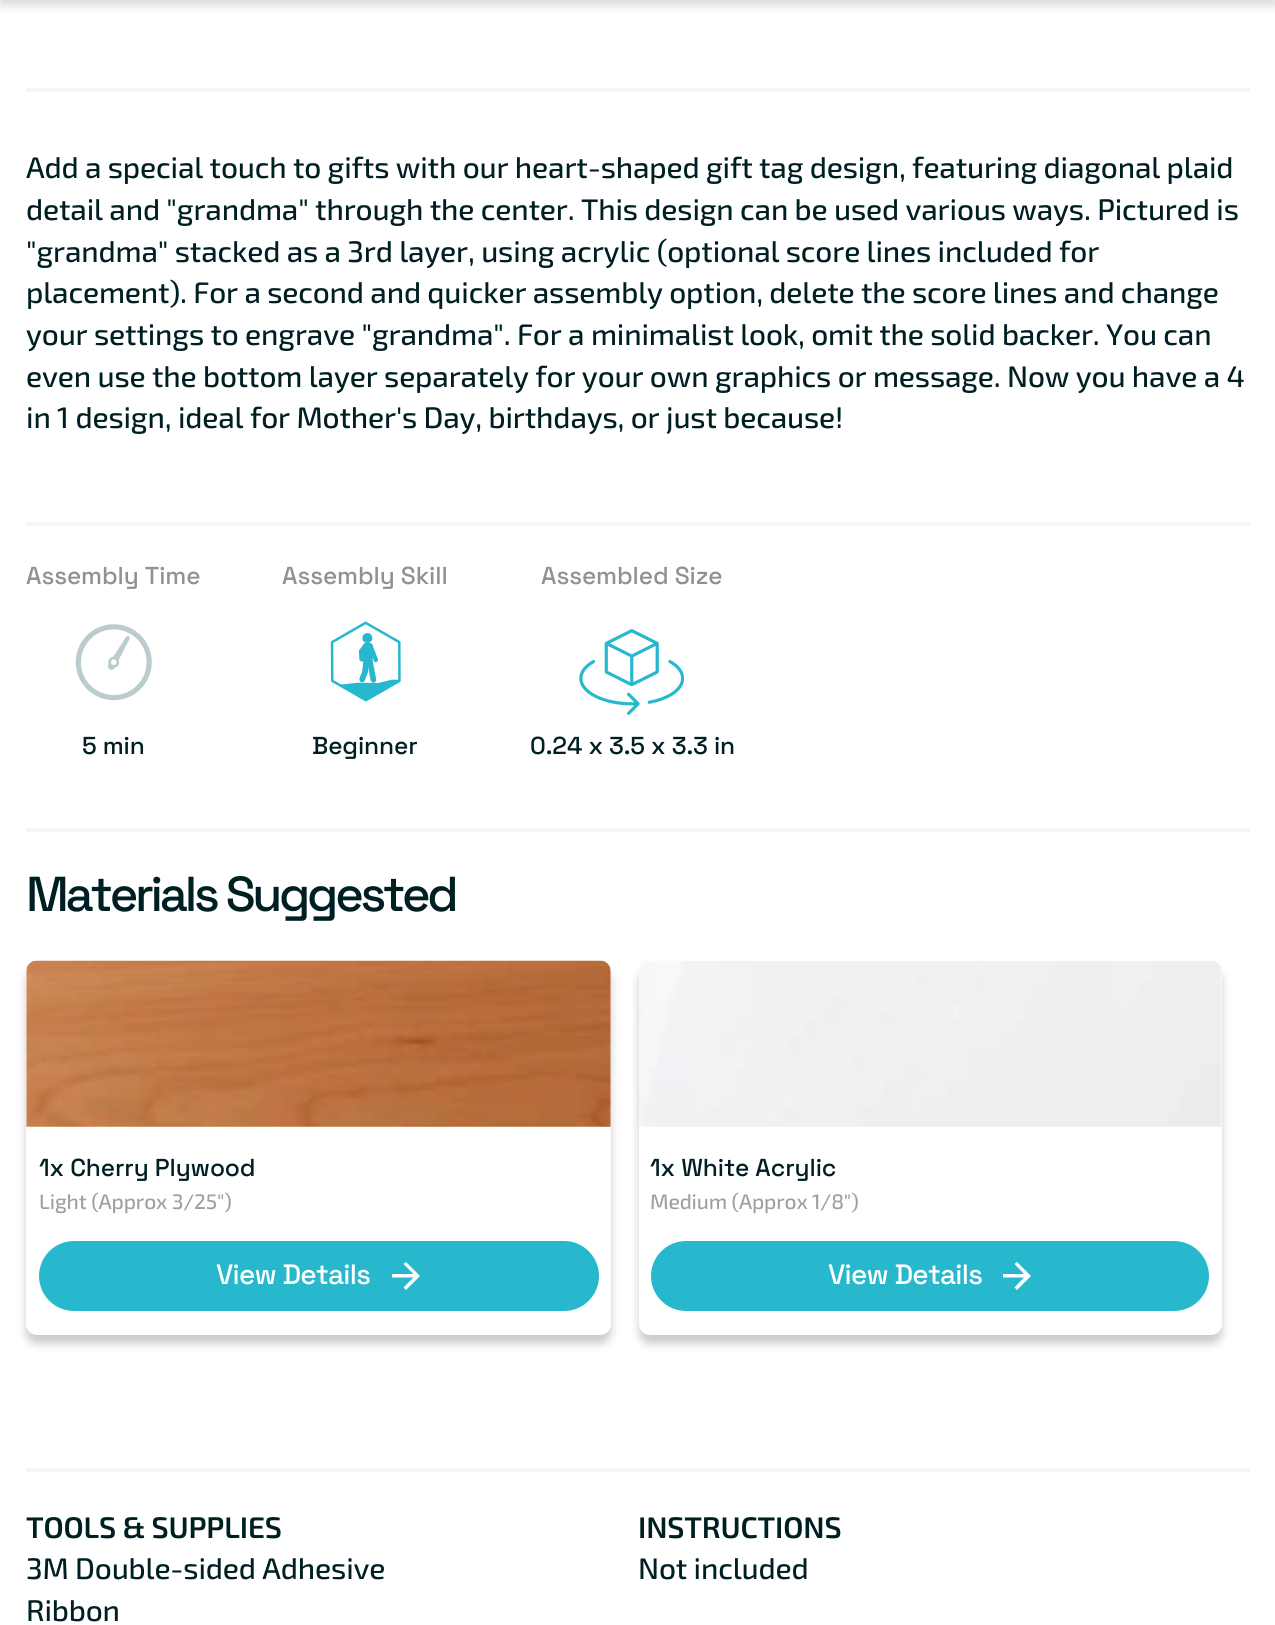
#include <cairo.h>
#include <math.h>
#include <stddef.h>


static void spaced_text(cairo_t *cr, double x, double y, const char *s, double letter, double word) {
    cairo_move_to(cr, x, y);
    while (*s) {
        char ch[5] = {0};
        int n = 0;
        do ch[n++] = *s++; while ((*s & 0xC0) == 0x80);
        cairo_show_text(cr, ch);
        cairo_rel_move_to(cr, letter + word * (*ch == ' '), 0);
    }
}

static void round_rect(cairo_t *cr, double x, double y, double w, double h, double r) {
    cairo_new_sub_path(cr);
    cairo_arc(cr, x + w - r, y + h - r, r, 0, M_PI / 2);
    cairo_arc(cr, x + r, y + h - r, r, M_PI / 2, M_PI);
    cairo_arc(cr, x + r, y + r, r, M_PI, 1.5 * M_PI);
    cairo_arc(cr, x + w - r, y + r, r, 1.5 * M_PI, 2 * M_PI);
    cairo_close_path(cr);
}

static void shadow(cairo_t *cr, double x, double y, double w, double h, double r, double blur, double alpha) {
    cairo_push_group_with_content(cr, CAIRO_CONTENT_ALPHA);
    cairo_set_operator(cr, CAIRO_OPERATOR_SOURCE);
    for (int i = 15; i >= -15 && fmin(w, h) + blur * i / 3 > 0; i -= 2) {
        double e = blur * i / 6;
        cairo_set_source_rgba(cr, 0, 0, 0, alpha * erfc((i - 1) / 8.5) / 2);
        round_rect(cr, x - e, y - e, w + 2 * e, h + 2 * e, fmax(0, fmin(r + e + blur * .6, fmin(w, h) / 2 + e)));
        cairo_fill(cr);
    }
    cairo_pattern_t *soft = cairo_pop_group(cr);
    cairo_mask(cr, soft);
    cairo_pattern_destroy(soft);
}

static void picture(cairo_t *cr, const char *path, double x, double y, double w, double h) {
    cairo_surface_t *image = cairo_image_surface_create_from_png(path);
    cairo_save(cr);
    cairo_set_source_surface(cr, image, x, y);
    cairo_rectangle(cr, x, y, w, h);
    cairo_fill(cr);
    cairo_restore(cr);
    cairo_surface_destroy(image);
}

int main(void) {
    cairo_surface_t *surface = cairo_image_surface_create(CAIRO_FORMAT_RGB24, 1275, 1625);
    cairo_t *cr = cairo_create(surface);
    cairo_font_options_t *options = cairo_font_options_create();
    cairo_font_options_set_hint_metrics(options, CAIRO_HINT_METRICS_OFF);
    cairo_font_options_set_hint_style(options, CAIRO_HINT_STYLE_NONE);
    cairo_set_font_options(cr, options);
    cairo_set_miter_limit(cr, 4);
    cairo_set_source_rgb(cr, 1, 1, 1);
    cairo_paint(cr);
    cairo_set_source_rgb(cr, 0, 0, 0);
    shadow(cr, 0, -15, 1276, 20, 0, 5, 0.16);
    cairo_set_source_rgb(cr, 0.961, 0.961, 0.961);
    cairo_rectangle(cr, 26, 88, 1224, 4);
    cairo_fill(cr);
    cairo_select_font_face(cr, "Exo 2 Medium", CAIRO_FONT_SLANT_NORMAL, CAIRO_FONT_WEIGHT_NORMAL);
    cairo_set_font_size(cr, 29.75);
    cairo_set_source_rgb(cr, 0, 0.122, 0.137);
    spaced_text(cr, 26, 178, "Add a special touch to gifts with our heart-shaped gift tag design, featuring diagonal plaid", -0.15, 0);
    spaced_text(cr, 26, 220, "detail and \"grandma\" through the center. This design can be used various ways. Pictured is", -0.15, 0);
    spaced_text(cr, 26, 262, "\"grandma\" stacked as a 3rd layer, using acrylic (optional score lines included for", -0.15, 0);
    spaced_text(cr, 26, 303, "placement). For a second and quicker assembly option, delete the score lines and change", -0.15, 0);
    spaced_text(cr, 26, 345, "your settings to engrave \"grandma\". For a minimalist look, omit the solid backer. You can", -0.15, 0);
    spaced_text(cr, 26, 387, "even use the bottom layer separately for your own graphics or message. Now you have a 4", -0.15, 0);
    spaced_text(cr, 26, 428, "in 1 design, ideal for Mother's Day, birthdays, or just because!", -0.15, 0);
    cairo_set_source_rgb(cr, 0.961, 0.961, 0.961);
    cairo_rectangle(cr, 26, 522, 1224, 4);
    cairo_fill(cr);
    cairo_rectangle(cr, 26, 828, 1224, 4);
    cairo_fill(cr);
    cairo_select_font_face(cr, "Space Grotesk Medium", CAIRO_FONT_SLANT_NORMAL, CAIRO_FONT_WEIGHT_NORMAL);
    cairo_set_font_size(cr, 24.5);
    cairo_set_source_rgb(cr, 0.569, 0.569, 0.569);
    spaced_text(cr, 26, 584, "Assembly Time", -0.1, 0);
    picture(cr, "img1.png", 75, 624, 77, 77);
    cairo_set_source_rgb(cr, 0, 0.122, 0.137);
    spaced_text(cr, 82, 754, "5 min", -0.1, 0);
    cairo_set_source_rgb(cr, 0.569, 0.569, 0.569);
    spaced_text(cr, 282, 584, "Assembly Skill", -0.1, 0);
    picture(cr, "img2.png", 330, 621, 71, 81);
    cairo_set_source_rgb(cr, 0, 0.122, 0.137);
    spaced_text(cr, 312, 754, "Beginner", -0.1, 0);
    cairo_set_source_rgb(cr, 0.569, 0.569, 0.569);
    spaced_text(cr, 541, 584, "Assembled Size", -0.1, 0);
    picture(cr, "img3.png", 579, 629, 105, 86);
    cairo_set_source_rgb(cr, 0, 0.122, 0.137);
    spaced_text(cr, 530, 754, "0.24 x 3.5 x 3.3 in", -0.1, 0);
    cairo_set_source_rgb(cr, 0.961, 0.961, 0.961);
    cairo_rectangle(cr, 26, 1468, 1224, 4);
    cairo_fill(cr);
    cairo_set_font_size(cr, 49);
    cairo_set_source_rgb(cr, 0, 0.122, 0.137);
    spaced_text(cr, 26, 911, "Materials Suggested", -3.3, 0);
    cairo_set_source_rgb(cr, 0, 0, 0);
    shadow(cr, 26, 970, 585, 374, 11, 4.5, 0.2);
    cairo_set_source_rgb(cr, 1, 1, 1);
    round_rect(cr, 26, 961, 585, 374, 11);
    cairo_fill(cr);
    picture(cr, "img4.png", 26, 960, 585, 167);
    cairo_set_font_size(cr, 24.5);
    cairo_set_source_rgb(cr, 0, 0.122, 0.137);
    spaced_text(cr, 39, 1176, "1x Cherry Plywood", -0.1, 0);
    cairo_select_font_face(cr, "Exo 2 Medium", CAIRO_FONT_SLANT_NORMAL, CAIRO_FONT_WEIGHT_NORMAL);
    cairo_set_font_size(cr, 21);
    cairo_set_source_rgb(cr, 0.62, 0.624, 0.631);
    spaced_text(cr, 39, 1209, "Light (Approx 3/25\")", -0.15, 0);
    cairo_set_source_rgb(cr, 0.153, 0.722, 0.808);
    round_rect(cr, 39, 1241, 560, 70, 35);
    cairo_fill(cr);
    cairo_select_font_face(cr, "Space Grotesk Medium", CAIRO_FONT_SLANT_NORMAL, CAIRO_FONT_WEIGHT_NORMAL);
    cairo_set_font_size(cr, 28);
    cairo_set_source_rgb(cr, 1, 1, 1);
    spaced_text(cr, 216, 1284, "View Details", -0.75, 0);
    cairo_set_fill_rule(cr, CAIRO_FILL_RULE_EVEN_ODD);
    cairo_new_path(cr);
    cairo_move_to(cr, 392, 1277.5);
    cairo_line_to(cr, 413.5, 1277.5);
    cairo_line_to(cr, 403.5, 1287.5);
    cairo_line_to(cr, 406, 1290);
    cairo_line_to(cr, 420, 1276);
    cairo_line_to(cr, 406, 1262);
    cairo_line_to(cr, 403.5, 1264);
    cairo_line_to(cr, 413.5, 1274);
    cairo_line_to(cr, 392, 1274);
    cairo_close_path(cr);
    cairo_fill(cr);
    cairo_set_source_rgb(cr, 0, 0, 0);
    shadow(cr, 639, 970, 583, 374, 11, 4.5, 0.2);
    cairo_set_source_rgb(cr, 1, 1, 1);
    round_rect(cr, 639, 961, 583, 374, 11);
    cairo_fill(cr);
    picture(cr, "img5.png", 639, 961, 583, 166);
    cairo_set_font_size(cr, 24.5);
    cairo_set_source_rgb(cr, 0, 0.122, 0.137);
    spaced_text(cr, 650, 1176, "1x White Acrylic", -0.1, 0);
    cairo_select_font_face(cr, "Exo 2 Medium", CAIRO_FONT_SLANT_NORMAL, CAIRO_FONT_WEIGHT_NORMAL);
    cairo_set_font_size(cr, 21);
    cairo_set_source_rgb(cr, 0.62, 0.624, 0.631);
    spaced_text(cr, 650, 1209, "Medium (Approx 1/8\")", -0.15, 0);
    cairo_set_source_rgb(cr, 0.153, 0.722, 0.808);
    round_rect(cr, 651, 1241, 558, 70, 35);
    cairo_fill(cr);
    cairo_select_font_face(cr, "Space Grotesk Medium", CAIRO_FONT_SLANT_NORMAL, CAIRO_FONT_WEIGHT_NORMAL);
    cairo_set_font_size(cr, 28);
    cairo_set_source_rgb(cr, 1, 1, 1);
    spaced_text(cr, 828, 1284, "View Details", -0.75, 0);
    cairo_new_path(cr);
    cairo_move_to(cr, 1003, 1277.5);
    cairo_line_to(cr, 1024, 1277.5);
    cairo_line_to(cr, 1014.5, 1287.5);
    cairo_line_to(cr, 1017, 1290);
    cairo_line_to(cr, 1031, 1276);
    cairo_line_to(cr, 1017, 1262);
    cairo_line_to(cr, 1014.5, 1264);
    cairo_line_to(cr, 1024, 1274);
    cairo_line_to(cr, 1003, 1274);
    cairo_close_path(cr);
    cairo_fill(cr);
    cairo_select_font_face(cr, "Exo 2 SemiBold", CAIRO_FONT_SLANT_NORMAL, CAIRO_FONT_WEIGHT_NORMAL);
    cairo_set_font_size(cr, 29.75);
    cairo_set_source_rgb(cr, 0, 0.122, 0.137);
    spaced_text(cr, 26, 1538, "TOOLS & SUPPLIES", -0.15, 0);
    cairo_select_font_face(cr, "Exo 2 Medium", CAIRO_FONT_SLANT_NORMAL, CAIRO_FONT_WEIGHT_NORMAL);
    spaced_text(cr, 26, 1579, "3M Double-sided Adhesive", -0.15, 0);
    spaced_text(cr, 26, 1621, "Ribbon", -0.15, 0);
    cairo_select_font_face(cr, "Exo 2 SemiBold", CAIRO_FONT_SLANT_NORMAL, CAIRO_FONT_WEIGHT_NORMAL);
    spaced_text(cr, 638, 1538, "INSTRUCTIONS", -0.15, 0);
    cairo_select_font_face(cr, "Exo 2 Medium", CAIRO_FONT_SLANT_NORMAL, CAIRO_FONT_WEIGHT_NORMAL);
    spaced_text(cr, 638, 1579, "Not included", -0.15, 0);
    cairo_surface_write_to_png(surface, "page.png");
    cairo_font_options_destroy(options);
    cairo_destroy(cr);
    cairo_surface_destroy(surface);
    return 0;
}
